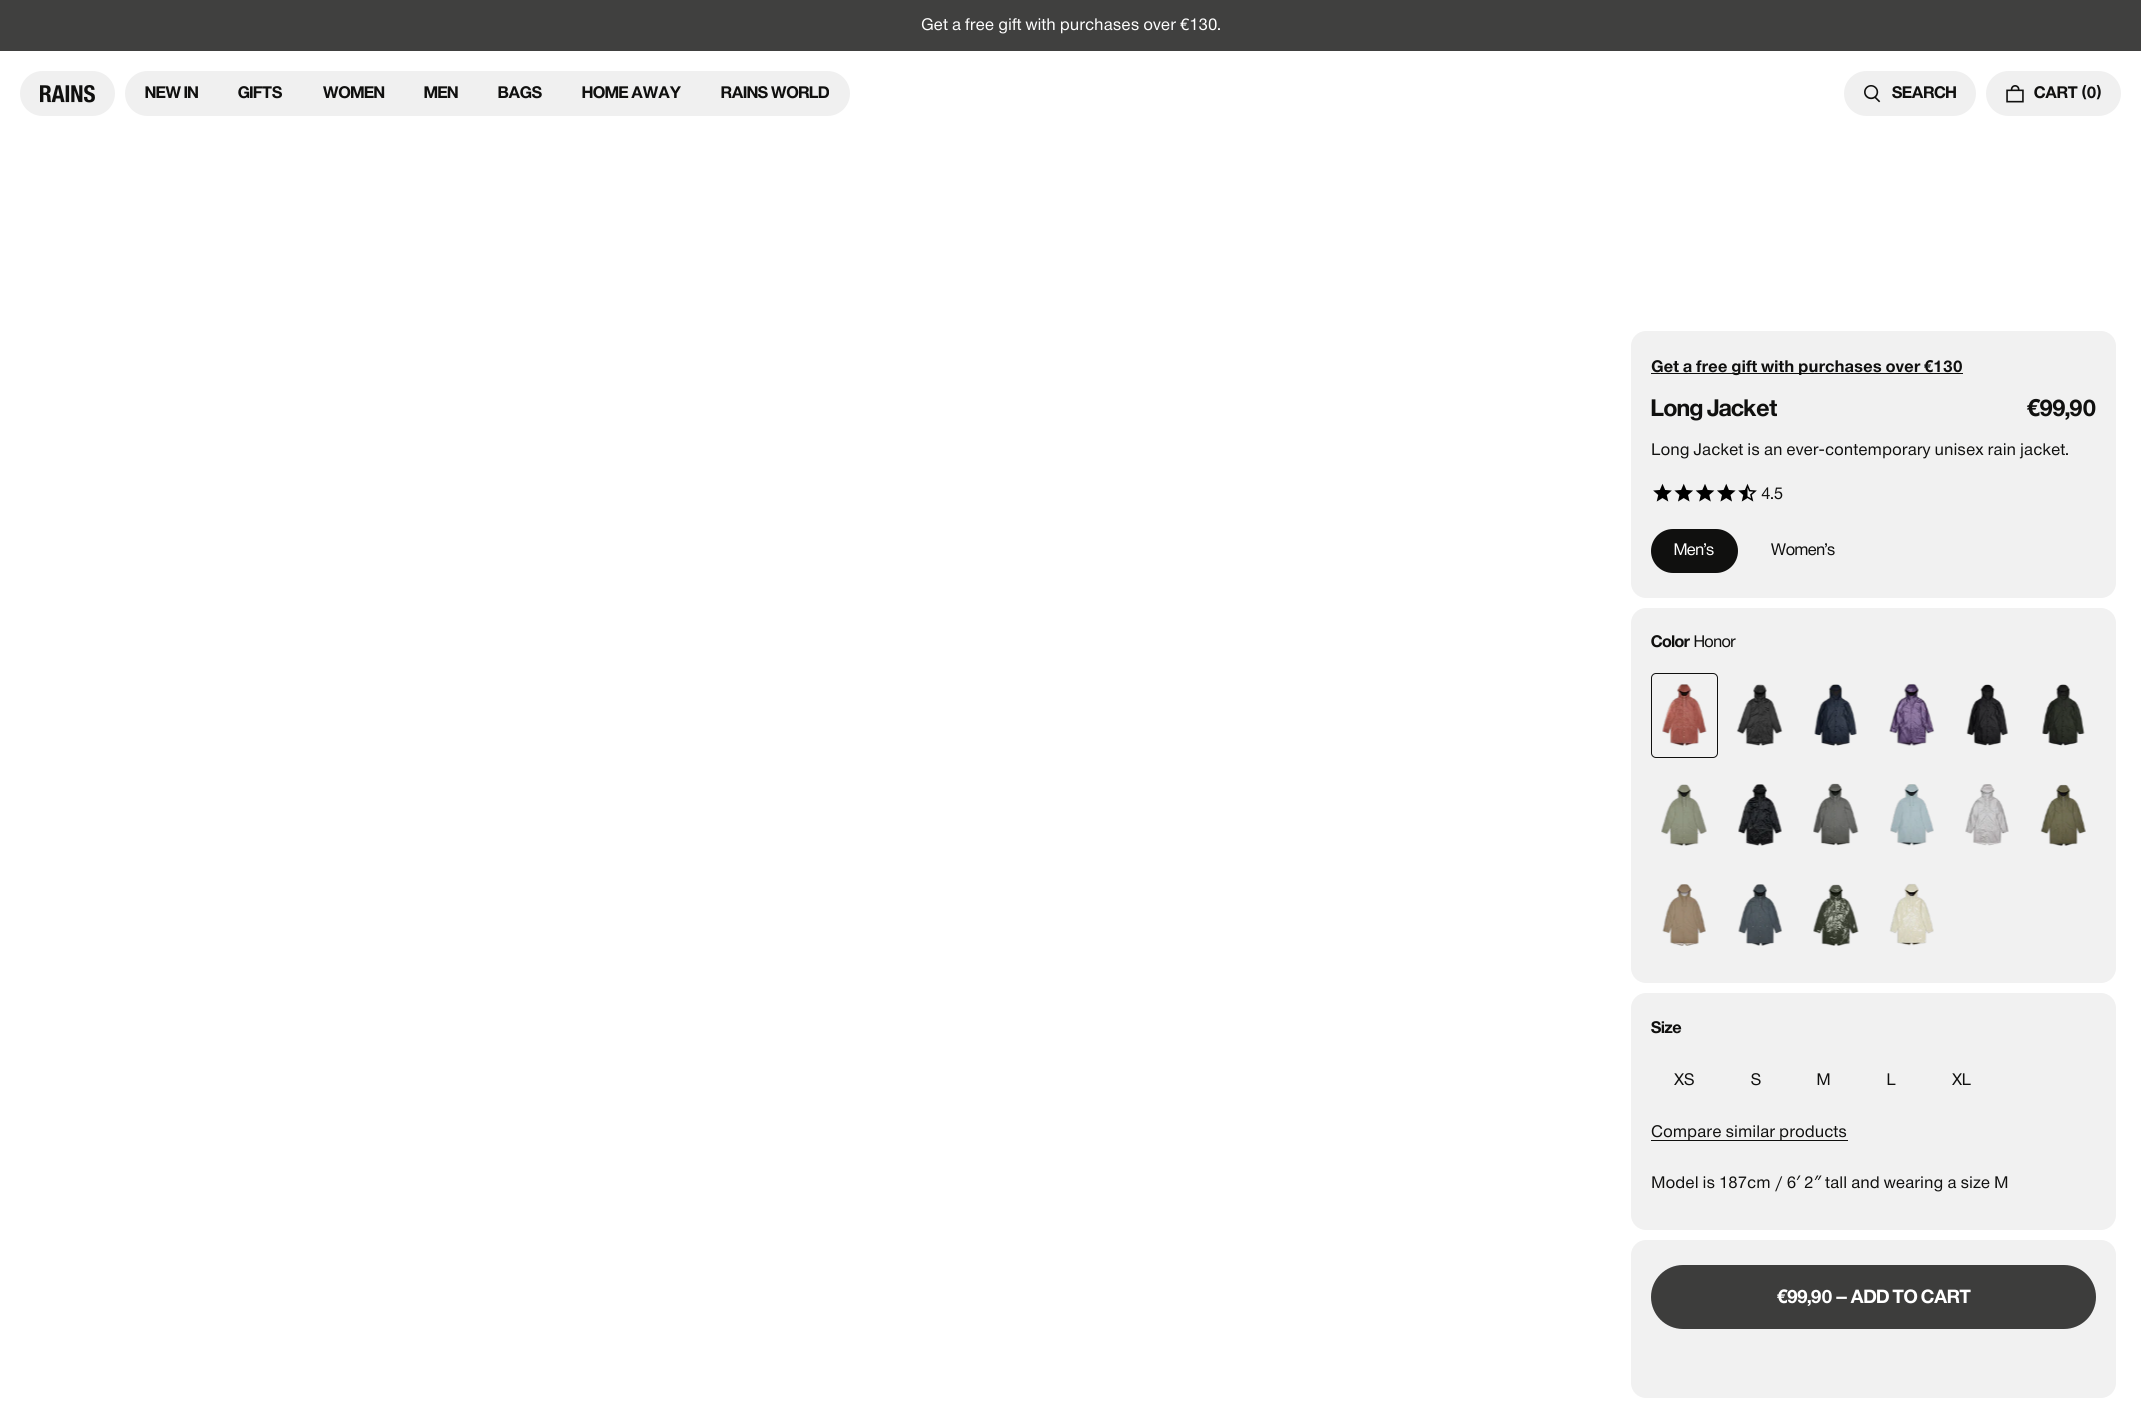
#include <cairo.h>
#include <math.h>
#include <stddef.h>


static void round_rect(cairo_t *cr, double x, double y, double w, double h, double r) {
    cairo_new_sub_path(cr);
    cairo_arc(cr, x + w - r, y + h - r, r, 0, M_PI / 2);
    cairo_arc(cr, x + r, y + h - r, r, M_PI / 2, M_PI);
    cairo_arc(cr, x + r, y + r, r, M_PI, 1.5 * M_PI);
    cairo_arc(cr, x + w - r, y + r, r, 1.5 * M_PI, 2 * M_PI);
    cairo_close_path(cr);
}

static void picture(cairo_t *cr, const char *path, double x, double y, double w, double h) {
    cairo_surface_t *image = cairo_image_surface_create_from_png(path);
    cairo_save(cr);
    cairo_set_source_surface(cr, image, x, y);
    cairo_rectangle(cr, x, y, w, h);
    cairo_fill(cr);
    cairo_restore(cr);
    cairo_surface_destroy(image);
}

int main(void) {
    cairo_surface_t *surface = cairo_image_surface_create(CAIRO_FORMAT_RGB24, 2141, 1417);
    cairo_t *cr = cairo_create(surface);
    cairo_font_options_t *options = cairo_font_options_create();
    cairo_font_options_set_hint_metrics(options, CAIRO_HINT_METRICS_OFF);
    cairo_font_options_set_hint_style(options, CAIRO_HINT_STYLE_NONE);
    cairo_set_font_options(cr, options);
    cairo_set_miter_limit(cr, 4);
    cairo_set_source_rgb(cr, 1, 1, 1);
    cairo_paint(cr);
    cairo_set_source_rgb(cr, 0.251, 0.251, 0.247);
    cairo_rectangle(cr, 0, 0, 2141, 51);
    cairo_fill(cr);
    cairo_select_font_face(cr, "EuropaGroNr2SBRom", CAIRO_FONT_SLANT_NORMAL, CAIRO_FONT_WEIGHT_NORMAL);
    cairo_set_font_size(cr, 17.5);
    cairo_set_source_rgb(cr, 1, 1, 1);
    cairo_move_to(cr, 921, 30);
    cairo_show_text(cr, "Get a free gift with purchases over €130.");
    cairo_set_source_rgb(cr, 0.941, 0.941, 0.941);
    round_rect(cr, 20, 71, 95, 45, 22.5);
    cairo_fill(cr);
    picture(cr, "img1.png", 40, 85, 55, 18);
    round_rect(cr, 125, 71, 725, 45, 22.5);
    cairo_fill(cr);
    cairo_select_font_face(cr, "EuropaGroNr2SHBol", CAIRO_FONT_SLANT_NORMAL, CAIRO_FONT_WEIGHT_NORMAL);
    cairo_set_source_rgb(cr, 0.063, 0.063, 0.059);
    cairo_move_to(cr, 145, 98);
    cairo_show_text(cr, "NEW IN");
    cairo_move_to(cr, 238, 98);
    cairo_show_text(cr, "GIFTS");
    cairo_move_to(cr, 323, 98);
    cairo_show_text(cr, "WOMEN");
    cairo_move_to(cr, 424, 98);
    cairo_show_text(cr, "MEN");
    cairo_move_to(cr, 498, 98);
    cairo_show_text(cr, "BAGS");
    cairo_move_to(cr, 582, 98);
    cairo_show_text(cr, "HOME AWAY");
    cairo_move_to(cr, 721, 98);
    cairo_show_text(cr, "RAINS WORLD");
    cairo_set_source_rgb(cr, 0.941, 0.941, 0.941);
    round_rect(cr, 1844, 71, 132, 45, 22.5);
    cairo_fill(cr);
    picture(cr, "img2.png", 1864, 85, 17, 18);
    cairo_set_source_rgb(cr, 0.063, 0.063, 0.059);
    cairo_move_to(cr, 1892, 98);
    cairo_show_text(cr, "SEARCH");
    cairo_set_source_rgb(cr, 0.941, 0.941, 0.941);
    round_rect(cr, 1986, 71, 135, 45, 22.5);
    cairo_fill(cr);
    picture(cr, "img3.png", 2006, 85, 18, 18);
    cairo_set_source_rgb(cr, 0.063, 0.063, 0.059);
    cairo_move_to(cr, 2034, 98);
    cairo_show_text(cr, "CART");
    cairo_move_to(cr, 2082, 98);
    cairo_show_text(cr, "(0)");
    cairo_set_source_rgb(cr, 0.945, 0.945, 0.945);
    round_rect(cr, 1631, 331, 485, 267, 15);
    cairo_fill(cr);
    cairo_set_source_rgb(cr, 0.063, 0.063, 0.059);
    cairo_rectangle(cr, 1651, 373, 312, 1);
    cairo_fill(cr);
    cairo_select_font_face(cr, "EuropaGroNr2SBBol", CAIRO_FONT_SLANT_NORMAL, CAIRO_FONT_WEIGHT_NORMAL);
    cairo_move_to(cr, 1651, 372);
    cairo_show_text(cr, "Get a free gift with purchases over €130");
    cairo_select_font_face(cr, "EuropaGroNr2SHBol", CAIRO_FONT_SLANT_NORMAL, CAIRO_FONT_WEIGHT_NORMAL);
    cairo_set_font_size(cr, 25);
    cairo_move_to(cr, 1651, 416);
    cairo_show_text(cr, "Long Jacket");
    cairo_move_to(cr, 2027, 416);
    cairo_show_text(cr, "€99,90");
    cairo_select_font_face(cr, "EuropaGroNr2SBRom", CAIRO_FONT_SLANT_NORMAL, CAIRO_FONT_WEIGHT_NORMAL);
    cairo_set_font_size(cr, 17.5);
    cairo_move_to(cr, 1651, 455);
    cairo_show_text(cr, "Long Jacket is an ever-contemporary unisex rain jacket.");
    picture(cr, "img4.png", 1653, 483, 19, 19);
    picture(cr, "img5.png", 1674, 483, 19, 19);
    picture(cr, "img6.png", 1695, 484, 20, 18);
    picture(cr, "img7.png", 1717, 483, 19, 19);
    picture(cr, "img8.png", 1738, 483, 19, 19);
    cairo_move_to(cr, 1761, 499);
    cairo_show_text(cr, "4.5");
    round_rect(cr, 1651, 529, 87, 44, 22);
    cairo_fill(cr);
    cairo_select_font_face(cr, "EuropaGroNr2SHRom", CAIRO_FONT_SLANT_NORMAL, CAIRO_FONT_WEIGHT_NORMAL);
    cairo_set_source_rgb(cr, 1, 1, 1);
    cairo_move_to(cr, 1674, 555);
    cairo_show_text(cr, "Men's");
    cairo_set_source_rgb(cr, 0.063, 0.063, 0.059);
    cairo_move_to(cr, 1771, 555);
    cairo_show_text(cr, "Women's");
    cairo_set_source_rgb(cr, 0.945, 0.945, 0.945);
    round_rect(cr, 1631, 608, 485, 375, 15);
    cairo_fill(cr);
    cairo_select_font_face(cr, "EuropaGroNr2SHBol", CAIRO_FONT_SLANT_NORMAL, CAIRO_FONT_WEIGHT_NORMAL);
    cairo_set_source_rgb(cr, 0.063, 0.063, 0.059);
    cairo_move_to(cr, 1651, 647);
    cairo_show_text(cr, "Color");
    cairo_select_font_face(cr, "EuropaGroNr2SHRom", CAIRO_FONT_SLANT_NORMAL, CAIRO_FONT_WEIGHT_NORMAL);
    cairo_move_to(cr, 1694, 647);
    cairo_show_text(cr, "Honor");
    round_rect(cr, 1651.5, 673.5, 66, 84, 4.5);
    cairo_set_line_width(cr, 1);
    cairo_stroke(cr);
    picture(cr, "img9.png", 1662, 684, 45, 62);
    picture(cr, "img10.png", 1736, 684, 47, 62);
    picture(cr, "img11.png", 1814, 684, 43, 62);
    picture(cr, "img12.png", 1889, 683, 46, 63);
    picture(cr, "img13.png", 1966, 684, 43, 62);
    picture(cr, "img14.png", 2042, 684, 43, 62);
    picture(cr, "img15.png", 1661, 784, 46, 62);
    picture(cr, "img16.png", 1738, 784, 44, 62);
    picture(cr, "img17.png", 1813, 783, 46, 63);
    picture(cr, "img18.png", 1890, 784, 44, 62);
    picture(cr, "img19.png", 1965, 784, 44, 62);
    picture(cr, "img20.png", 2040, 784, 46, 62);
    picture(cr, "img21.png", 1662, 884, 44, 62);
    picture(cr, "img22.png", 1738, 884, 45, 62);
    picture(cr, "img23.png", 1813, 884, 46, 62);
    picture(cr, "img24.png", 1889, 883, 45, 63);
    cairo_set_source_rgb(cr, 0.945, 0.945, 0.945);
    round_rect(cr, 1631, 993, 485, 237, 15);
    cairo_fill(cr);
    cairo_select_font_face(cr, "EuropaGroNr2SHBol", CAIRO_FONT_SLANT_NORMAL, CAIRO_FONT_WEIGHT_NORMAL);
    cairo_set_source_rgb(cr, 0.063, 0.063, 0.059);
    cairo_move_to(cr, 1651, 1033);
    cairo_show_text(cr, "Size");
    cairo_select_font_face(cr, "EuropaGroNr2SHRom", CAIRO_FONT_SLANT_NORMAL, CAIRO_FONT_WEIGHT_NORMAL);
    cairo_move_to(cr, 1674, 1085);
    cairo_show_text(cr, "XS");
    cairo_move_to(cr, 1751, 1085);
    cairo_show_text(cr, "S");
    cairo_move_to(cr, 1817, 1085);
    cairo_show_text(cr, "M");
    cairo_move_to(cr, 1887, 1085);
    cairo_show_text(cr, "L");
    cairo_move_to(cr, 1952, 1085);
    cairo_show_text(cr, "XL");
    cairo_rectangle(cr, 1651, 1140, 197, 1);
    cairo_fill(cr);
    cairo_select_font_face(cr, "EuropaGroNr2SBRom", CAIRO_FONT_SLANT_NORMAL, CAIRO_FONT_WEIGHT_NORMAL);
    cairo_move_to(cr, 1651, 1137);
    cairo_show_text(cr, "Compare similar products");
    cairo_move_to(cr, 1651, 1188);
    cairo_show_text(cr, "Model is 187cm / 6");
    cairo_select_font_face(cr, "Noto Sans", CAIRO_FONT_SLANT_NORMAL, CAIRO_FONT_WEIGHT_NORMAL);
    cairo_move_to(cr, 1796, 1188);
    cairo_show_text(cr, "′");
    cairo_select_font_face(cr, "EuropaGroNr2SBRom", CAIRO_FONT_SLANT_NORMAL, CAIRO_FONT_WEIGHT_NORMAL);
    cairo_move_to(cr, 1804, 1188);
    cairo_show_text(cr, "2");
    cairo_select_font_face(cr, "Noto Sans", CAIRO_FONT_SLANT_NORMAL, CAIRO_FONT_WEIGHT_NORMAL);
    cairo_move_to(cr, 1814, 1188);
    cairo_show_text(cr, "″");
    cairo_select_font_face(cr, "EuropaGroNr2SBRom", CAIRO_FONT_SLANT_NORMAL, CAIRO_FONT_WEIGHT_NORMAL);
    cairo_move_to(cr, 1825, 1188);
    cairo_show_text(cr, "tall and wearing a size M");
    cairo_set_source_rgb(cr, 0.945, 0.945, 0.945);
    round_rect(cr, 1631, 1240, 485, 158, 15);
    cairo_fill(cr);
    cairo_set_source_rgb(cr, 0.239, 0.239, 0.235);
    round_rect(cr, 1651, 1265, 445, 64, 32);
    cairo_fill(cr);
    cairo_select_font_face(cr, "EuropaGroNr2SHBol", CAIRO_FONT_SLANT_NORMAL, CAIRO_FONT_WEIGHT_NORMAL);
    cairo_set_font_size(cr, 20);
    cairo_set_source_rgb(cr, 1, 1, 1);
    cairo_move_to(cr, 1777, 1303);
    cairo_show_text(cr, "€99,90 – ADD TO CART");
    cairo_surface_write_to_png(surface, "page.png");
    cairo_font_options_destroy(options);
    cairo_destroy(cr);
    cairo_surface_destroy(surface);
    return 0;
}
